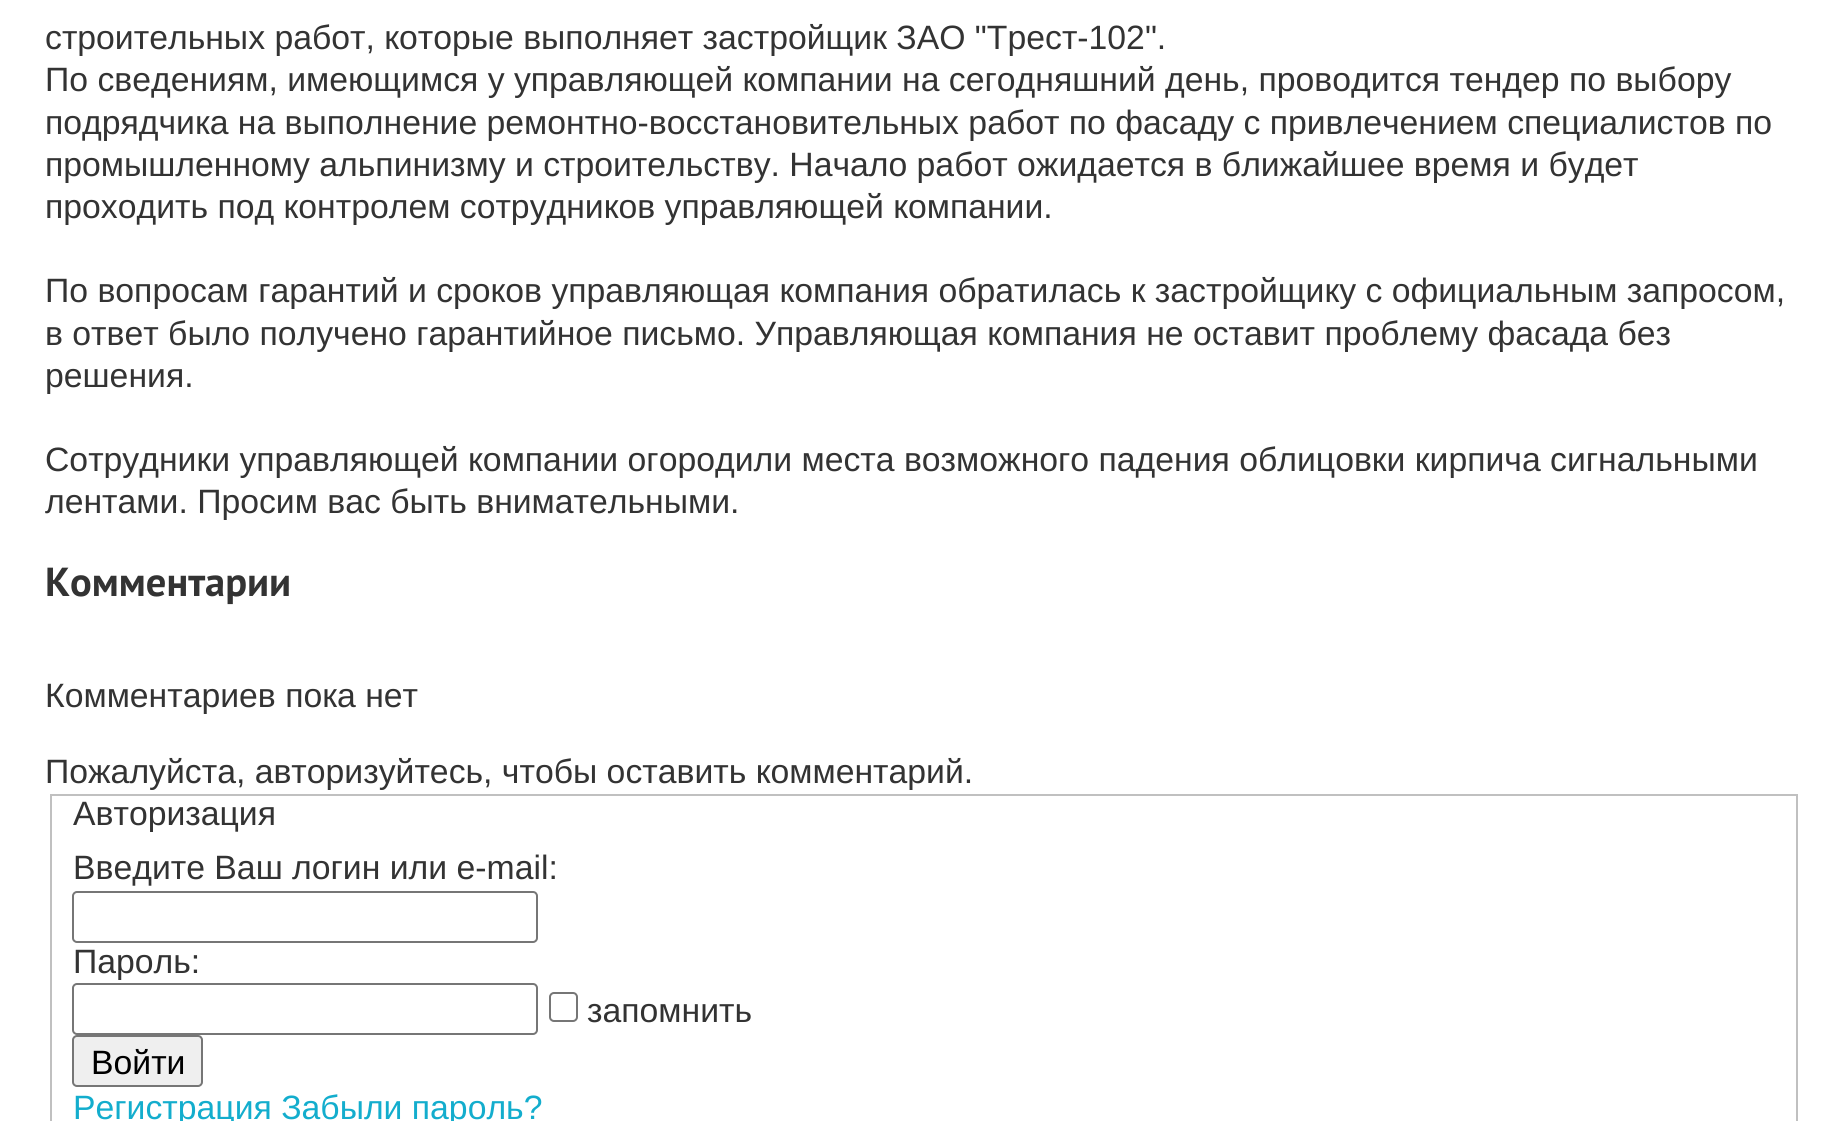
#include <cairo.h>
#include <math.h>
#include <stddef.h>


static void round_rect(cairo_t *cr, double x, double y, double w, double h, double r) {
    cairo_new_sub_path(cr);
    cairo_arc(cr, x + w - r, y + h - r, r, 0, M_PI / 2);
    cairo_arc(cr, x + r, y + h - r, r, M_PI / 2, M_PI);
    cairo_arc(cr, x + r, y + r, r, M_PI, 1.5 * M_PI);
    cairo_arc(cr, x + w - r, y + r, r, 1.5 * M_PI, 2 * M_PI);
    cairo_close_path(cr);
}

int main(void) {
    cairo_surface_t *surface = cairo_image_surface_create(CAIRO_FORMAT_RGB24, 1847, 1121);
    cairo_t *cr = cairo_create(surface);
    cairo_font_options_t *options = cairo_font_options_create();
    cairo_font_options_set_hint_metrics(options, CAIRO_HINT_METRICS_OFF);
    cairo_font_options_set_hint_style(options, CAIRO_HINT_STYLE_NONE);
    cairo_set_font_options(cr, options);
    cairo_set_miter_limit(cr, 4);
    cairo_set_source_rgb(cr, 1, 1, 1);
    cairo_paint(cr);
    cairo_select_font_face(cr, "Liberation Sans", CAIRO_FONT_SLANT_NORMAL, CAIRO_FONT_WEIGHT_NORMAL);
    cairo_set_font_size(cr, 33.75);
    cairo_set_source_rgb(cr, 0.2, 0.2, 0.2);
    cairo_move_to(cr, 45, 49);
    cairo_show_text(cr, "строительных работ, которые выполняет застройщик ЗАО \"Трест-102\".");
    cairo_move_to(cr, 45, 91);
    cairo_show_text(cr, "По сведениям, имеющимся у управляющей компании на сегодняшний день, проводится тендер по выбору");
    cairo_move_to(cr, 45, 134);
    cairo_show_text(cr, "подрядчика на выполнение ремонтно-восстановительных работ по фасаду с привлечением специалистов по");
    cairo_move_to(cr, 45, 176);
    cairo_show_text(cr, "промышленному альпинизму и строительству. Начало работ ожидается в ближайшее время и будет");
    cairo_move_to(cr, 45, 218);
    cairo_show_text(cr, "проходить под контролем сотрудников управляющей компании.");
    cairo_move_to(cr, 45, 302);
    cairo_show_text(cr, "По вопросам гарантий и сроков управляющая компания обратилась к застройщику с официальным запросом,");
    cairo_move_to(cr, 45, 345);
    cairo_show_text(cr, "в ответ было получено гарантийное письмо. Управляющая компания не оставит проблему фасада без");
    cairo_move_to(cr, 45, 387);
    cairo_show_text(cr, "решения.");
    cairo_move_to(cr, 45, 471);
    cairo_show_text(cr, "Сотрудники управляющей компании огородили места возможного падения облицовки кирпича сигнальными");
    cairo_move_to(cr, 45, 513);
    cairo_show_text(cr, "лентами. Просим вас быть внимательными.");
    cairo_select_font_face(cr, "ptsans", CAIRO_FONT_SLANT_NORMAL, CAIRO_FONT_WEIGHT_BOLD);
    cairo_set_font_size(cr, 40.5);
    cairo_move_to(cr, 45, 596);
    cairo_show_text(cr, "Комментарии");
    cairo_select_font_face(cr, "Liberation Sans", CAIRO_FONT_SLANT_NORMAL, CAIRO_FONT_WEIGHT_NORMAL);
    cairo_set_font_size(cr, 33.75);
    cairo_move_to(cr, 45, 707);
    cairo_show_text(cr, "Комментариев пока нет");
    cairo_move_to(cr, 45, 783);
    cairo_show_text(cr, "Пожалуйста, авторизуйтесь, чтобы оставить комментарий.");
    cairo_rectangle(cr, 51, 795, 1746, 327);
    cairo_set_source_rgb(cr, 0.753, 0.753, 0.753);
    cairo_stroke(cr);
    cairo_set_source_rgb(cr, 0.2, 0.2, 0.2);
    cairo_move_to(cr, 73, 825);
    cairo_show_text(cr, "Авторизация");
    cairo_move_to(cr, 73, 879);
    cairo_show_text(cr, "Введите Ваш логин или e-mail:");
    round_rect(cr, 73, 892, 464, 50, 4);
    cairo_set_source_rgb(cr, 0.463, 0.463, 0.463);
    cairo_stroke(cr);
    cairo_set_source_rgb(cr, 0.2, 0.2, 0.2);
    cairo_move_to(cr, 73, 973);
    cairo_show_text(cr, "Пароль:");
    round_rect(cr, 73, 984, 464, 50, 4);
    cairo_set_source_rgb(cr, 0.463, 0.463, 0.463);
    cairo_stroke(cr);
    round_rect(cr, 550, 993, 27, 28, 4);
    cairo_stroke(cr);
    cairo_set_source_rgb(cr, 0.2, 0.2, 0.2);
    cairo_move_to(cr, 587, 1022);
    cairo_show_text(cr, "запомнить");
    cairo_set_source_rgb(cr, 0.937, 0.937, 0.937);
    round_rect(cr, 73, 1036, 129, 50, 4);
    cairo_fill_preserve(cr);
    cairo_set_source_rgb(cr, 0.463, 0.463, 0.463);
    cairo_stroke(cr);
    cairo_set_source_rgb(cr, 0, 0, 0);
    cairo_move_to(cr, 91, 1074);
    cairo_show_text(cr, "Войти");
    cairo_set_source_rgb(cr, 0.078, 0.678, 0.804);
    cairo_move_to(cr, 73, 1119);
    cairo_show_text(cr, "Регистрация Забыли пароль?");
    cairo_surface_write_to_png(surface, "page.png");
    cairo_font_options_destroy(options);
    cairo_destroy(cr);
    cairo_surface_destroy(surface);
    return 0;
}
